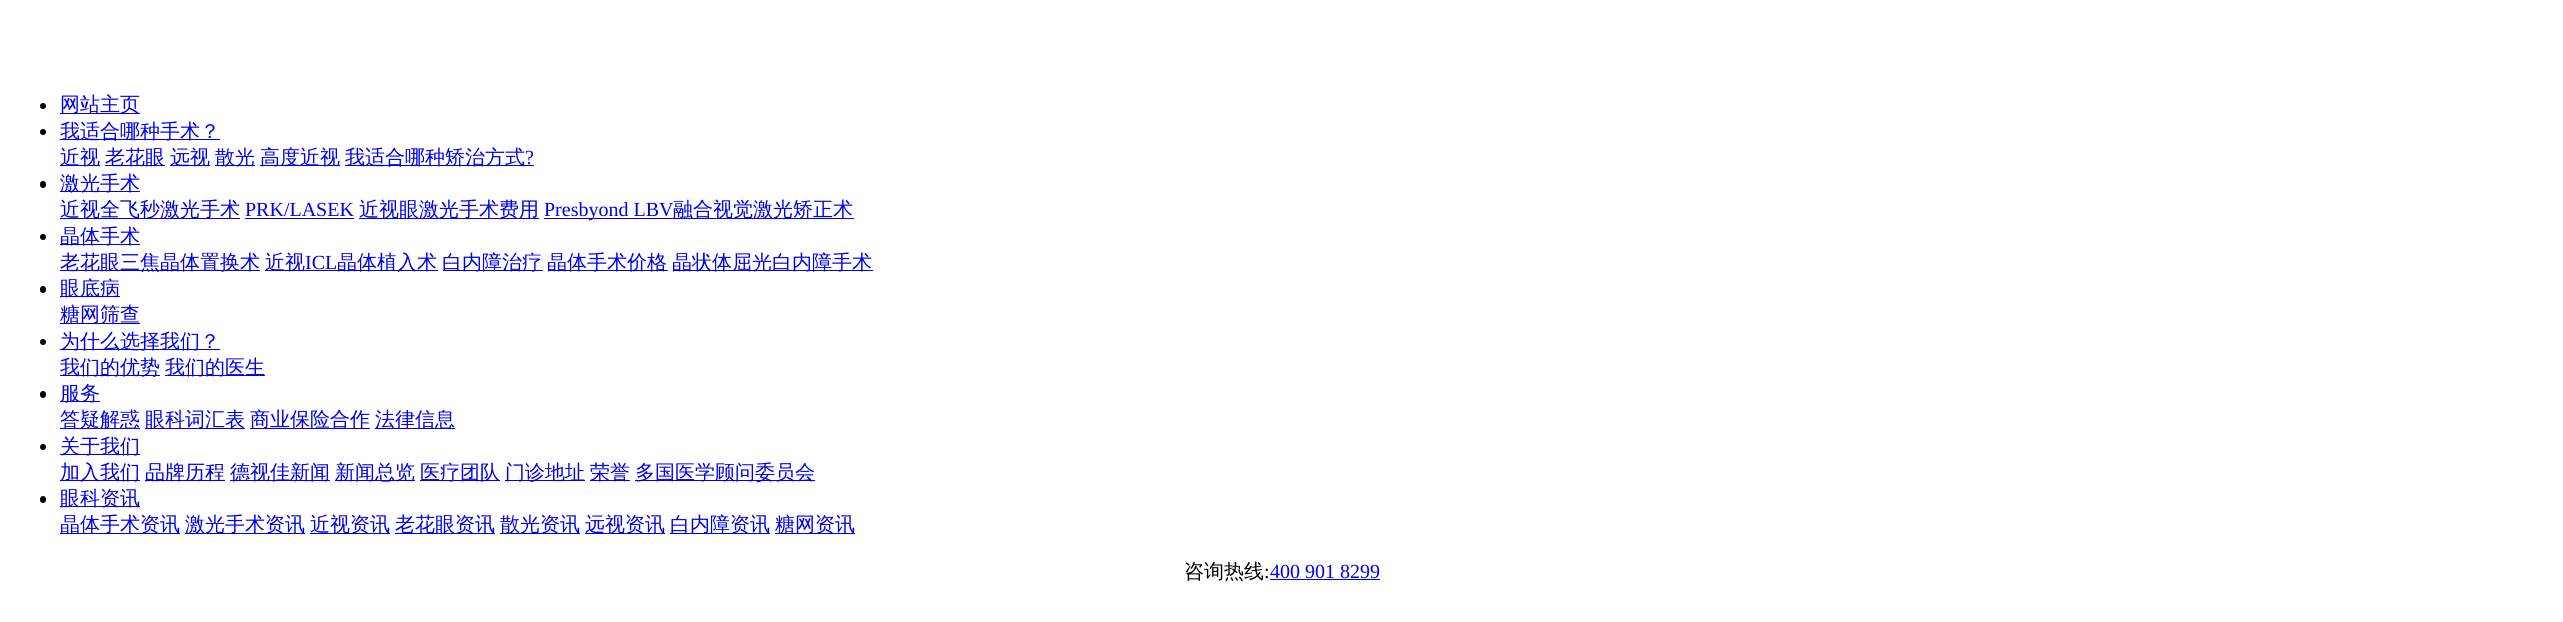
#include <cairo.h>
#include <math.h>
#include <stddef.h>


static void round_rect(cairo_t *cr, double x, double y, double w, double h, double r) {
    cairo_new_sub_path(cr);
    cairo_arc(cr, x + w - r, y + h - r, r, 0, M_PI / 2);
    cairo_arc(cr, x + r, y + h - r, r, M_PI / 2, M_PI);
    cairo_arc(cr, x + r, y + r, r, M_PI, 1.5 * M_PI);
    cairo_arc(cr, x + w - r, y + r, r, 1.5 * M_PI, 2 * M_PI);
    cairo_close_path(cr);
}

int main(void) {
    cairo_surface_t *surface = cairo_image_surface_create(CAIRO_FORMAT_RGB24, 2563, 622);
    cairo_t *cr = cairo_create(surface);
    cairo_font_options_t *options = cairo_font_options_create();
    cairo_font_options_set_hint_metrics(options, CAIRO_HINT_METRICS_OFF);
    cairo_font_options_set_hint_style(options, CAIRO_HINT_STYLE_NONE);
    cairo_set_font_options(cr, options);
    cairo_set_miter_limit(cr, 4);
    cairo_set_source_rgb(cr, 1, 1, 1);
    cairo_paint(cr);
    cairo_set_source_rgb(cr, 0, 0, 0);
    cairo_arc(cr, 43, 106, 3, 0, 2 * M_PI);
    cairo_fill(cr);
    cairo_set_source_rgb(cr, 0, 0, 0.933);
    cairo_rectangle(cr, 60, 113, 80, 1);
    cairo_fill(cr);
    cairo_select_font_face(cr, "WenQuanYi Zen Hei Medium", CAIRO_FONT_SLANT_NORMAL, CAIRO_FONT_WEIGHT_NORMAL);
    cairo_set_font_size(cr, 20);
    cairo_move_to(cr, 60, 111);
    cairo_show_text(cr, "网站主页");
    cairo_set_source_rgb(cr, 0, 0, 0);
    cairo_new_path(cr);
    cairo_arc(cr, 43, 132, 3, 0, 2 * M_PI);
    cairo_fill(cr);
    cairo_set_source_rgb(cr, 0, 0, 0.933);
    cairo_rectangle(cr, 60, 139, 160, 1);
    cairo_fill(cr);
    cairo_move_to(cr, 60, 138);
    cairo_show_text(cr, "我适合哪种手术？");
    cairo_rectangle(cr, 60, 165, 40, 1);
    cairo_fill(cr);
    cairo_move_to(cr, 60, 164);
    cairo_show_text(cr, "近视");
    cairo_rectangle(cr, 105, 165, 60, 1);
    cairo_fill(cr);
    cairo_move_to(cr, 105, 164);
    cairo_show_text(cr, "老花眼");
    cairo_rectangle(cr, 170, 165, 40, 1);
    cairo_fill(cr);
    cairo_move_to(cr, 170, 164);
    cairo_show_text(cr, "远视");
    cairo_rectangle(cr, 215, 165, 40, 1);
    cairo_fill(cr);
    cairo_move_to(cr, 215, 164);
    cairo_show_text(cr, "散光");
    cairo_rectangle(cr, 260, 165, 80, 1);
    cairo_fill(cr);
    cairo_move_to(cr, 260, 164);
    cairo_show_text(cr, "高度近视");
    cairo_rectangle(cr, 345, 165, 189, 1);
    cairo_fill(cr);
    cairo_move_to(cr, 345, 164);
    cairo_show_text(cr, "我适合哪种矫治方式");
    cairo_select_font_face(cr, "Liberation Serif", CAIRO_FONT_SLANT_NORMAL, CAIRO_FONT_WEIGHT_NORMAL);
    cairo_move_to(cr, 525, 164);
    cairo_show_text(cr, "?");
    cairo_set_source_rgb(cr, 0, 0, 0);
    round_rect(cr, 40, 181, 6, 7, 3);
    cairo_fill(cr);
    cairo_set_source_rgb(cr, 0, 0, 0.933);
    cairo_rectangle(cr, 60, 191, 80, 1);
    cairo_fill(cr);
    cairo_select_font_face(cr, "WenQuanYi Zen Hei Medium", CAIRO_FONT_SLANT_NORMAL, CAIRO_FONT_WEIGHT_NORMAL);
    cairo_move_to(cr, 60, 190);
    cairo_show_text(cr, "激光手术");
    cairo_rectangle(cr, 60, 218, 180, 1);
    cairo_fill(cr);
    cairo_move_to(cr, 60, 216);
    cairo_show_text(cr, "近视全飞秒激光手术");
    cairo_select_font_face(cr, "Liberation Serif", CAIRO_FONT_SLANT_NORMAL, CAIRO_FONT_WEIGHT_NORMAL);
    cairo_move_to(cr, 245, 216);
    cairo_show_text(cr, "PRK/LASEK");
    cairo_rectangle(cr, 245, 218, 109, 1);
    cairo_fill(cr);
    cairo_rectangle(cr, 359, 218, 180, 1);
    cairo_fill(cr);
    cairo_select_font_face(cr, "WenQuanYi Zen Hei Medium", CAIRO_FONT_SLANT_NORMAL, CAIRO_FONT_WEIGHT_NORMAL);
    cairo_move_to(cr, 359, 216);
    cairo_show_text(cr, "近视眼激光手术费用");
    cairo_rectangle(cr, 544, 218, 310, 1);
    cairo_fill(cr);
    cairo_select_font_face(cr, "Liberation Serif", CAIRO_FONT_SLANT_NORMAL, CAIRO_FONT_WEIGHT_NORMAL);
    cairo_move_to(cr, 544, 216);
    cairo_show_text(cr, "Presbyond LBV");
    cairo_select_font_face(cr, "WenQuanYi Zen Hei Medium", CAIRO_FONT_SLANT_NORMAL, CAIRO_FONT_WEIGHT_NORMAL);
    cairo_move_to(cr, 673, 216);
    cairo_show_text(cr, "融合视觉激光矫正术");
    cairo_set_source_rgb(cr, 0, 0, 0);
    cairo_new_path(cr);
    cairo_arc(cr, 43, 237, 3, 0, 2 * M_PI);
    cairo_fill(cr);
    cairo_set_source_rgb(cr, 0, 0, 0.933);
    cairo_rectangle(cr, 60, 244, 80, 1);
    cairo_fill(cr);
    cairo_move_to(cr, 60, 243);
    cairo_show_text(cr, "晶体手术");
    cairo_rectangle(cr, 60, 270, 200, 1);
    cairo_fill(cr);
    cairo_move_to(cr, 60, 269);
    cairo_show_text(cr, "老花眼三焦晶体置换术");
    cairo_rectangle(cr, 265, 270, 173, 1);
    cairo_fill(cr);
    cairo_move_to(cr, 265, 269);
    cairo_show_text(cr, "近视");
    cairo_select_font_face(cr, "Liberation Serif", CAIRO_FONT_SLANT_NORMAL, CAIRO_FONT_WEIGHT_NORMAL);
    cairo_move_to(cr, 305, 269);
    cairo_show_text(cr, "ICL");
    cairo_select_font_face(cr, "WenQuanYi Zen Hei Medium", CAIRO_FONT_SLANT_NORMAL, CAIRO_FONT_WEIGHT_NORMAL);
    cairo_move_to(cr, 337, 269);
    cairo_show_text(cr, "晶体植入术");
    cairo_rectangle(cr, 443, 270, 100, 1);
    cairo_fill(cr);
    cairo_move_to(cr, 442, 269);
    cairo_show_text(cr, "白内障治疗");
    cairo_rectangle(cr, 548, 270, 120, 1);
    cairo_fill(cr);
    cairo_move_to(cr, 547, 269);
    cairo_show_text(cr, "晶体手术价格");
    cairo_rectangle(cr, 673, 270, 200, 1);
    cairo_fill(cr);
    cairo_move_to(cr, 672, 269);
    cairo_show_text(cr, "晶状体屈光白内障手术");
    cairo_set_source_rgb(cr, 0, 0, 0);
    round_rect(cr, 40, 286, 6, 7, 3);
    cairo_fill(cr);
    cairo_set_source_rgb(cr, 0, 0, 0.933);
    cairo_rectangle(cr, 60, 296, 60, 1);
    cairo_fill(cr);
    cairo_move_to(cr, 60, 295);
    cairo_show_text(cr, "眼底病");
    cairo_rectangle(cr, 60, 323, 80, 1);
    cairo_fill(cr);
    cairo_move_to(cr, 60, 321);
    cairo_show_text(cr, "糖网筛查");
    cairo_set_source_rgb(cr, 0, 0, 0);
    cairo_new_path(cr);
    cairo_arc(cr, 43, 342, 3, 0, 2 * M_PI);
    cairo_fill(cr);
    cairo_set_source_rgb(cr, 0, 0, 0.933);
    cairo_rectangle(cr, 60, 349, 160, 1);
    cairo_fill(cr);
    cairo_move_to(cr, 60, 348);
    cairo_show_text(cr, "为什么选择我们？");
    cairo_rectangle(cr, 60, 375, 100, 1);
    cairo_fill(cr);
    cairo_move_to(cr, 60, 374);
    cairo_show_text(cr, "我们的优势");
    cairo_rectangle(cr, 165, 375, 100, 1);
    cairo_fill(cr);
    cairo_move_to(cr, 165, 374);
    cairo_show_text(cr, "我们的医生");
    cairo_set_source_rgb(cr, 0, 0, 0);
    round_rect(cr, 40, 391, 6, 7, 3);
    cairo_fill(cr);
    cairo_set_source_rgb(cr, 0, 0, 0.933);
    cairo_rectangle(cr, 60, 401, 40, 1);
    cairo_fill(cr);
    cairo_move_to(cr, 60, 400);
    cairo_show_text(cr, "服务");
    cairo_rectangle(cr, 60, 428, 80, 1);
    cairo_fill(cr);
    cairo_move_to(cr, 60, 426);
    cairo_show_text(cr, "答疑解惑");
    cairo_rectangle(cr, 145, 428, 100, 1);
    cairo_fill(cr);
    cairo_move_to(cr, 145, 426);
    cairo_show_text(cr, "眼科词汇表");
    cairo_rectangle(cr, 250, 428, 120, 1);
    cairo_fill(cr);
    cairo_move_to(cr, 250, 426);
    cairo_show_text(cr, "商业保险合作");
    cairo_rectangle(cr, 375, 428, 80, 1);
    cairo_fill(cr);
    cairo_move_to(cr, 375, 426);
    cairo_show_text(cr, "法律信息");
    cairo_set_source_rgb(cr, 0, 0, 0);
    cairo_new_path(cr);
    cairo_arc(cr, 43, 447, 3, 0, 2 * M_PI);
    cairo_fill(cr);
    cairo_set_source_rgb(cr, 0, 0, 0.933);
    cairo_rectangle(cr, 60, 454, 80, 1);
    cairo_fill(cr);
    cairo_move_to(cr, 60, 453);
    cairo_show_text(cr, "关于我们");
    cairo_rectangle(cr, 60, 480, 80, 1);
    cairo_fill(cr);
    cairo_move_to(cr, 60, 479);
    cairo_show_text(cr, "加入我们");
    cairo_rectangle(cr, 145, 480, 80, 1);
    cairo_fill(cr);
    cairo_move_to(cr, 145, 479);
    cairo_show_text(cr, "品牌历程");
    cairo_rectangle(cr, 230, 480, 100, 1);
    cairo_fill(cr);
    cairo_move_to(cr, 230, 479);
    cairo_show_text(cr, "德视佳新闻");
    cairo_rectangle(cr, 335, 480, 80, 1);
    cairo_fill(cr);
    cairo_move_to(cr, 335, 479);
    cairo_show_text(cr, "新闻总览");
    cairo_rectangle(cr, 420, 480, 80, 1);
    cairo_fill(cr);
    cairo_move_to(cr, 420, 479);
    cairo_show_text(cr, "医疗团队");
    cairo_rectangle(cr, 505, 480, 80, 1);
    cairo_fill(cr);
    cairo_move_to(cr, 505, 479);
    cairo_show_text(cr, "门诊地址");
    cairo_rectangle(cr, 590, 480, 40, 1);
    cairo_fill(cr);
    cairo_move_to(cr, 590, 479);
    cairo_show_text(cr, "荣誉");
    cairo_rectangle(cr, 635, 480, 180, 1);
    cairo_fill(cr);
    cairo_move_to(cr, 635, 479);
    cairo_show_text(cr, "多国医学顾问委员会");
    cairo_set_source_rgb(cr, 0, 0, 0);
    round_rect(cr, 40, 496, 6, 7, 3);
    cairo_fill(cr);
    cairo_set_source_rgb(cr, 0, 0, 0.933);
    cairo_rectangle(cr, 60, 506, 80, 1);
    cairo_fill(cr);
    cairo_move_to(cr, 60, 505);
    cairo_show_text(cr, "眼科资讯");
    cairo_rectangle(cr, 60, 533, 120, 1);
    cairo_fill(cr);
    cairo_move_to(cr, 60, 531);
    cairo_show_text(cr, "晶体手术资讯");
    cairo_rectangle(cr, 185, 533, 120, 1);
    cairo_fill(cr);
    cairo_move_to(cr, 185, 531);
    cairo_show_text(cr, "激光手术资讯");
    cairo_rectangle(cr, 310, 533, 80, 1);
    cairo_fill(cr);
    cairo_move_to(cr, 310, 531);
    cairo_show_text(cr, "近视资讯");
    cairo_rectangle(cr, 395, 533, 100, 1);
    cairo_fill(cr);
    cairo_move_to(cr, 395, 531);
    cairo_show_text(cr, "老花眼资讯");
    cairo_rectangle(cr, 500, 533, 80, 1);
    cairo_fill(cr);
    cairo_move_to(cr, 500, 531);
    cairo_show_text(cr, "散光资讯");
    cairo_rectangle(cr, 585, 533, 80, 1);
    cairo_fill(cr);
    cairo_move_to(cr, 585, 531);
    cairo_show_text(cr, "远视资讯");
    cairo_rectangle(cr, 670, 533, 100, 1);
    cairo_fill(cr);
    cairo_move_to(cr, 670, 531);
    cairo_show_text(cr, "白内障资讯");
    cairo_rectangle(cr, 775, 533, 80, 1);
    cairo_fill(cr);
    cairo_move_to(cr, 775, 531);
    cairo_show_text(cr, "糖网资讯");
    cairo_set_source_rgb(cr, 0, 0, 0);
    cairo_move_to(cr, 1184, 578);
    cairo_show_text(cr, "咨询热线");
    cairo_select_font_face(cr, "Liberation Serif", CAIRO_FONT_SLANT_NORMAL, CAIRO_FONT_WEIGHT_NORMAL);
    cairo_move_to(cr, 1264, 578);
    cairo_show_text(cr, ":");
    cairo_set_source_rgb(cr, 0, 0, 0.933);
    cairo_move_to(cr, 1270, 578);
    cairo_show_text(cr, "400 901 8299");
    cairo_rectangle(cr, 1270, 579, 110, 1);
    cairo_fill(cr);
    cairo_surface_write_to_png(surface, "page.png");
    cairo_font_options_destroy(options);
    cairo_destroy(cr);
    cairo_surface_destroy(surface);
    return 0;
}
